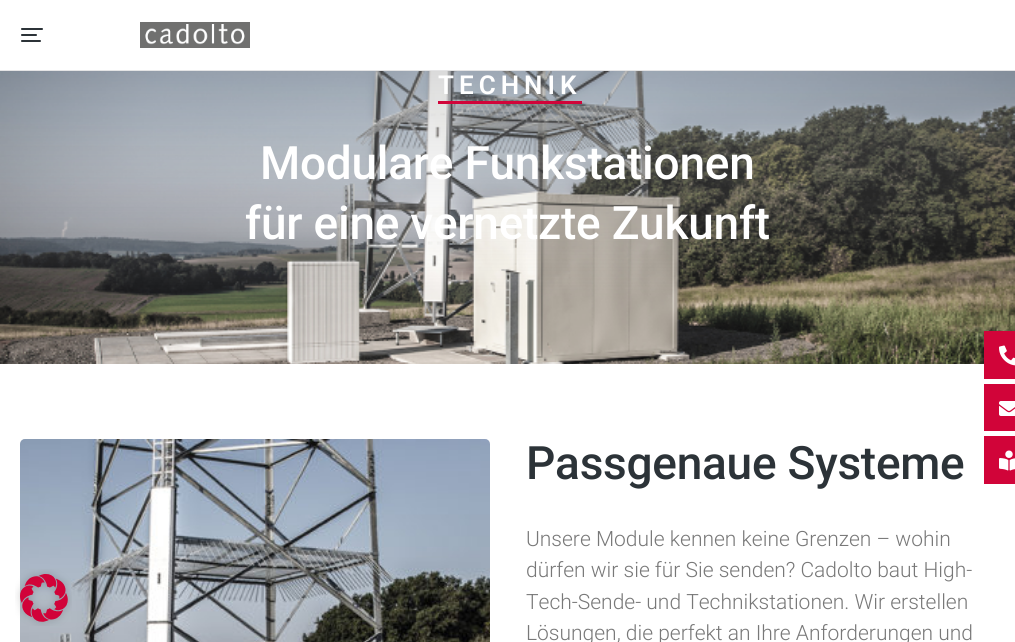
#include <cairo.h>
#include <math.h>
#include <stddef.h>


static void spaced_text(cairo_t *cr, double x, double y, const char *s, double letter, double word) {
    cairo_move_to(cr, x, y);
    while (*s) {
        char ch[5] = {0};
        int n = 0;
        do ch[n++] = *s++; while ((*s & 0xC0) == 0x80);
        cairo_show_text(cr, ch);
        cairo_rel_move_to(cr, letter + word * (*ch == ' '), 0);
    }
}

static void picture(cairo_t *cr, const char *path, double x, double y, double w, double h) {
    cairo_surface_t *image = cairo_image_surface_create_from_png(path);
    cairo_save(cr);
    cairo_set_source_surface(cr, image, x, y);
    cairo_rectangle(cr, x, y, w, h);
    cairo_fill(cr);
    cairo_restore(cr);
    cairo_surface_destroy(image);
}

int main(void) {
    cairo_surface_t *surface = cairo_image_surface_create(CAIRO_FORMAT_RGB24, 1015, 642);
    cairo_t *cr = cairo_create(surface);
    cairo_font_options_t *options = cairo_font_options_create();
    cairo_font_options_set_hint_metrics(options, CAIRO_HINT_METRICS_OFF);
    cairo_font_options_set_hint_style(options, CAIRO_HINT_STYLE_NONE);
    cairo_set_font_options(cr, options);
    cairo_set_miter_limit(cr, 4);
    cairo_set_source_rgb(cr, 1, 1, 1);
    cairo_paint(cr);
    picture(cr, "img5.png", 20, 439, 470, 203);
    picture(cr, "img1.png", 15, 569, 57, 57);
    cairo_set_source_rgb(cr, 0.894, 0.894, 0.898);
    cairo_rectangle(cr, 0, 70, 1015, 1);
    cairo_fill(cr);
    picture(cr, "img2.png", 21, 28, 22, 14);
    cairo_set_source_rgb(cr, 0.439, 0.439, 0.435);
    cairo_rectangle(cr, 140, 22, 110, 26);
    cairo_fill(cr);
    picture(cr, "img3.png", 145, 24, 100, 21);
    picture(cr, "img4.png", 0, 71, 1015, 293);
    cairo_set_source_rgb(cr, 0.82, 0.016, 0.224);
    cairo_rectangle(cr, 438, 101, 144, 3);
    cairo_fill(cr);
    cairo_select_font_face(cr, "Roboto SemiBold", CAIRO_FONT_SLANT_NORMAL, CAIRO_FONT_WEIGHT_NORMAL);
    cairo_set_font_size(cr, 26);
    cairo_set_source_rgb(cr, 1, 1, 1);
    spaced_text(cr, 438, 94, "TECHNIK", 5, 0);
    cairo_select_font_face(cr, "Roboto Medium", CAIRO_FONT_SLANT_NORMAL, CAIRO_FONT_WEIGHT_NORMAL);
    cairo_set_font_size(cr, 46);
    spaced_text(cr, 260, 179, "Modulare Funkstationen", -0.25, 0);
    spaced_text(cr, 245, 239, "für eine vernetzte Zukunft", -0.25, 0);
    cairo_set_source_rgb(cr, 0.173, 0.2, 0.22);
    spaced_text(cr, 526, 479, "Passgenaue Systeme", -0.25, 0);
    cairo_select_font_face(cr, "Roboto Light", CAIRO_FONT_SLANT_NORMAL, CAIRO_FONT_WEIGHT_NORMAL);
    cairo_set_font_size(cr, 21);
    cairo_set_source_rgb(cr, 0.471, 0.471, 0.471);
    cairo_move_to(cr, 526, 546);
    cairo_show_text(cr, "Unsere Module kennen keine Grenzen – wohin");
    cairo_move_to(cr, 526, 577);
    cairo_show_text(cr, "dürfen wir sie für Sie senden? Cadolto baut High-");
    cairo_move_to(cr, 526, 609);
    cairo_show_text(cr, "Tech-Sende- und Technikstationen. Wir erstellen");
    cairo_move_to(cr, 526, 640);
    cairo_show_text(cr, "Lösungen, die perfekt an Ihre Anforderungen und");
    cairo_set_source_rgb(cr, 0.82, 0.016, 0.224);
    cairo_rectangle(cr, 984, 331, 31, 48);
    cairo_fill(cr);
    picture(cr, "img6.png", 999, 345, 16, 21);
    cairo_rectangle(cr, 984, 384, 31, 47);
    cairo_fill(cr);
    picture(cr, "img7.png", 999, 401, 16, 15);
    cairo_rectangle(cr, 984, 436, 31, 48);
    cairo_fill(cr);
    picture(cr, "img8.png", 999, 450, 16, 21);
    cairo_surface_write_to_png(surface, "page.png");
    cairo_font_options_destroy(options);
    cairo_destroy(cr);
    cairo_surface_destroy(surface);
    return 0;
}
